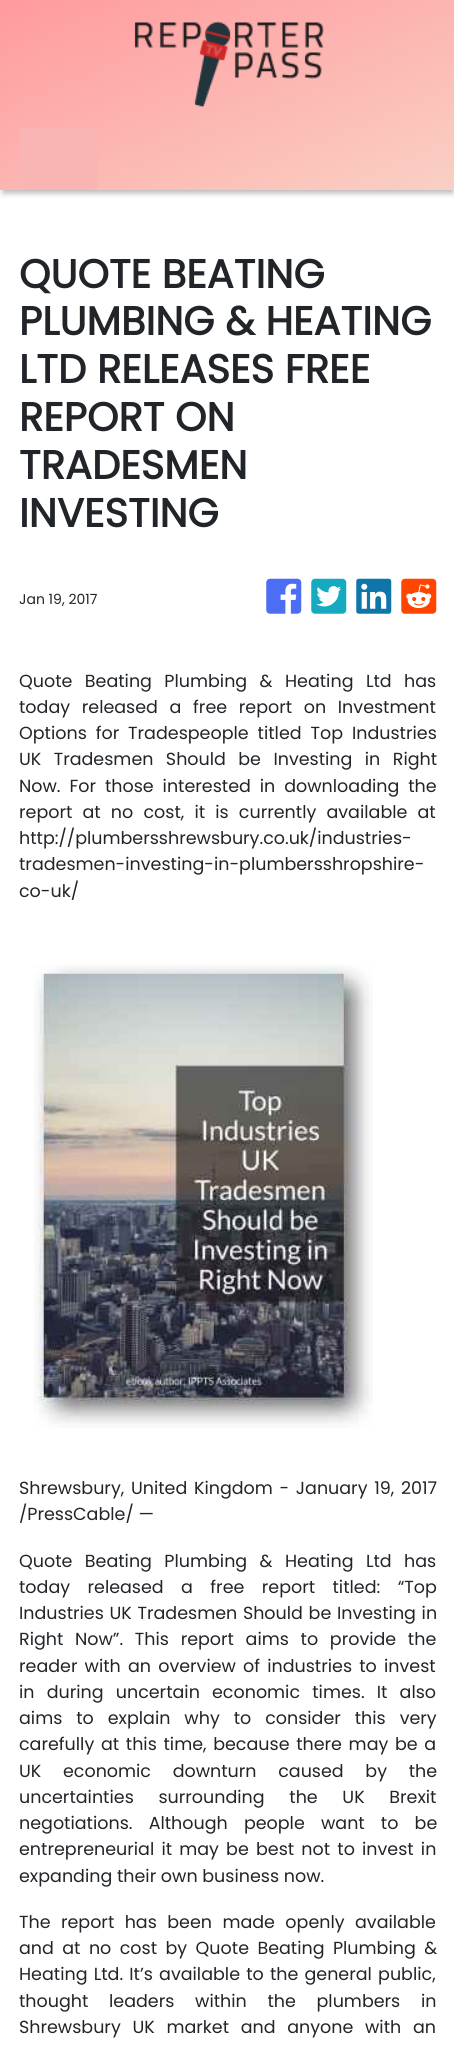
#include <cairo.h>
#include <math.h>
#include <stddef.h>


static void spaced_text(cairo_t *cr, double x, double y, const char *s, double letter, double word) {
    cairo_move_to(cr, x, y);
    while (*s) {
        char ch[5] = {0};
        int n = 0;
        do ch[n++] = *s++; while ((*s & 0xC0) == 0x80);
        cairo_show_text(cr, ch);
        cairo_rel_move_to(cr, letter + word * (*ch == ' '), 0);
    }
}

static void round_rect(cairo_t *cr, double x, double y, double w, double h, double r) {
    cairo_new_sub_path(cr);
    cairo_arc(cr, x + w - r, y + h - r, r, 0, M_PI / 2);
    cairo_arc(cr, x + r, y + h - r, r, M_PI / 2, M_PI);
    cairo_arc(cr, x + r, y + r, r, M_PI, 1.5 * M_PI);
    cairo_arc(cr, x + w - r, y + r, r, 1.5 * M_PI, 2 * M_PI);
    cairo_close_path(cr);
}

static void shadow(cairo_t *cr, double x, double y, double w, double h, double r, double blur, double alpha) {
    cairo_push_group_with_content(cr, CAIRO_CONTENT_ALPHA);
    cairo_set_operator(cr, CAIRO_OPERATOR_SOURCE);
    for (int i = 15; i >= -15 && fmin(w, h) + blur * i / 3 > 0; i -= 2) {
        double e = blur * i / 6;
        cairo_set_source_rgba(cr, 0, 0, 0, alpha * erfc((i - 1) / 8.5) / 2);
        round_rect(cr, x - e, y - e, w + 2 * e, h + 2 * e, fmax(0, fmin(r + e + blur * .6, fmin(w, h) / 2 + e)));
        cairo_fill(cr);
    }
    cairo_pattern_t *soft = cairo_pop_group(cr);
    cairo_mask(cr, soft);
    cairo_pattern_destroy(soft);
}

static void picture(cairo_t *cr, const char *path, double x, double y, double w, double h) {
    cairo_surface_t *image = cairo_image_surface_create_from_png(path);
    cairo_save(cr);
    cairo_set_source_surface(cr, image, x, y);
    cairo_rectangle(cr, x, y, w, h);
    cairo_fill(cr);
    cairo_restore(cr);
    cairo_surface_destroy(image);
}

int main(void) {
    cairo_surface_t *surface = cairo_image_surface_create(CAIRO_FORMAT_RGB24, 454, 2047);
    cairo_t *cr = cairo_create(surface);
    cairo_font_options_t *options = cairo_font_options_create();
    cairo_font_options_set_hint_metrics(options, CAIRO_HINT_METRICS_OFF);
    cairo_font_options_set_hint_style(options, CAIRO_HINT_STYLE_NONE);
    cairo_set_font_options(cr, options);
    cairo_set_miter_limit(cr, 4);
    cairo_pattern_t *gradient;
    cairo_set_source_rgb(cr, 1, 1, 1);
    cairo_paint(cr);
    gradient = cairo_pattern_create_linear(160, -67, 295, 257);
    cairo_pattern_add_color_stop_rgba(gradient, 0, 1, 0.604, 0.62, 1);
    cairo_pattern_add_color_stop_rgba(gradient, 1, 0.98, 0.816, 0.769, 1);
    cairo_set_source(cr, gradient);
    cairo_pattern_destroy(gradient);
    cairo_rectangle(cr, 0, 0, 454, 190);
    cairo_fill(cr);
    picture(cr, "img1.png", 134, 21, 190, 86);
    cairo_save(cr);
    cairo_rectangle(cr, 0, 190, 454, 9);
    cairo_clip(cr);
    cairo_set_source_rgb(cr, 0.714, 0.714, 0.714);
    shadow(cr, 3, 135, 450, 58, 0, 3, 1);
    cairo_restore(cr);
    cairo_set_source_rgb(cr, 0.973, 0.706, 0.706);
    round_rect(cr, 20, 128, 78, 62, 5);
    cairo_fill(cr);
    cairo_select_font_face(cr, "Poppins", CAIRO_FONT_SLANT_NORMAL, CAIRO_FONT_WEIGHT_BOLD);
    cairo_set_font_size(cr, 40);
    cairo_set_source_rgb(cr, 0.129, 0.145, 0.161);
    cairo_move_to(cr, 19, 288);
    cairo_show_text(cr, "QUOTE BEATING");
    cairo_move_to(cr, 19, 335);
    cairo_show_text(cr, "PLUMBING & HEATING");
    cairo_move_to(cr, 19, 383);
    cairo_show_text(cr, "LTD RELEASES FREE");
    cairo_move_to(cr, 19, 431);
    cairo_show_text(cr, "REPORT ON");
    cairo_move_to(cr, 19, 479);
    cairo_show_text(cr, "TRADESMEN");
    cairo_move_to(cr, 19, 527);
    cairo_show_text(cr, "INVESTING");
    cairo_select_font_face(cr, "Poppins", CAIRO_FONT_SLANT_NORMAL, CAIRO_FONT_WEIGHT_NORMAL);
    cairo_set_font_size(cr, 14);
    cairo_move_to(cr, 19, 604);
    cairo_show_text(cr, "Jan 19, 2017");
    picture(cr, "img2.png", 266, 578, 36, 36);
    picture(cr, "img3.png", 311, 578, 36, 36);
    picture(cr, "img4.png", 356, 578, 36, 36);
    picture(cr, "img5.png", 401, 578, 36, 36);
    cairo_set_font_size(cr, 17.5);
    spaced_text(cr, 19, 687, "Quote Beating Plumbing & Heating Ltd has", 0, 7.75);
    spaced_text(cr, 19, 713, "today released a free report on Investment", 0, 7);
    spaced_text(cr, 19, 739, "Options for Tradespeople titled Top Industries", 0, 4.25);
    spaced_text(cr, 19, 765, "UK Tradesmen Should be Investing in Right", 0, 7.75);
    spaced_text(cr, 19, 792, "Now. For those interested in downloading the", 0, 4.25);
    spaced_text(cr, 19, 818, "report at no cost, it is currently available at", 0, 5.5);
    cairo_move_to(cr, 19, 844);
    cairo_show_text(cr, "http://plumbersshrewsbury.co.uk/industries-");
    cairo_move_to(cr, 19, 870);
    cairo_show_text(cr, "tradesmen-investing-in-plumbersshropshire-");
    cairo_move_to(cr, 19, 897);
    cairo_show_text(cr, "co-uk/");
    picture(cr, "img6.png", 34, 964, 339, 464);
    spaced_text(cr, 19, 1494, "Shrewsbury, United Kingdom - January 19, 2017", 0, 2);
    cairo_move_to(cr, 19, 1520);
    cairo_show_text(cr, "/PressCable/ —");
    spaced_text(cr, 19, 1567, "Quote Beating Plumbing & Heating Ltd has", 0, 7.75);
    spaced_text(cr, 19, 1593, "today released a free report titled: “Top", 0, 12.75);
    spaced_text(cr, 19, 1619, "Industries UK Tradesmen Should be Investing in", 0, 1);
    spaced_text(cr, 19, 1645, "Right Now”. This report aims to provide the", 0, 7);
    spaced_text(cr, 19, 1672, "reader with an overview of industries to invest", 0, 2.5);
    spaced_text(cr, 19, 1698, "in during uncertain economic times. It also", 0, 7.5);
    spaced_text(cr, 19, 1724, "aims to explain why to consider this very", 0, 9.25);
    spaced_text(cr, 19, 1750, "carefully at this time, because there may be a", 0, 2);
    spaced_text(cr, 19, 1777, "UK economic downturn caused by the", 0, 17);
    spaced_text(cr, 19, 1803, "uncertainties surrounding the UK Brexit", 0, 20);
    spaced_text(cr, 19, 1829, "negotiations. Although people want to be", 0, 11.5);
    spaced_text(cr, 19, 1855, "entrepreneurial it may be best not to invest in", 0, 2.5);
    cairo_move_to(cr, 19, 1882);
    cairo_show_text(cr, "expanding their own business now.");
    spaced_text(cr, 19, 1928, "The report has been made openly available", 0, 5.75);
    spaced_text(cr, 19, 1954, "and at no cost by Quote Beating Plumbing &", 0, 3.75);
    spaced_text(cr, 19, 1980, "Heating Ltd. It’s available to the general public,", 0, 1.5);
    spaced_text(cr, 19, 2007, "thought leaders within the plumbers in", 0, 16);
    spaced_text(cr, 19, 2033, "Shrewsbury UK market and anyone with an", 0, 7);
    cairo_surface_write_to_png(surface, "page.png");
    cairo_font_options_destroy(options);
    cairo_destroy(cr);
    cairo_surface_destroy(surface);
    return 0;
}
